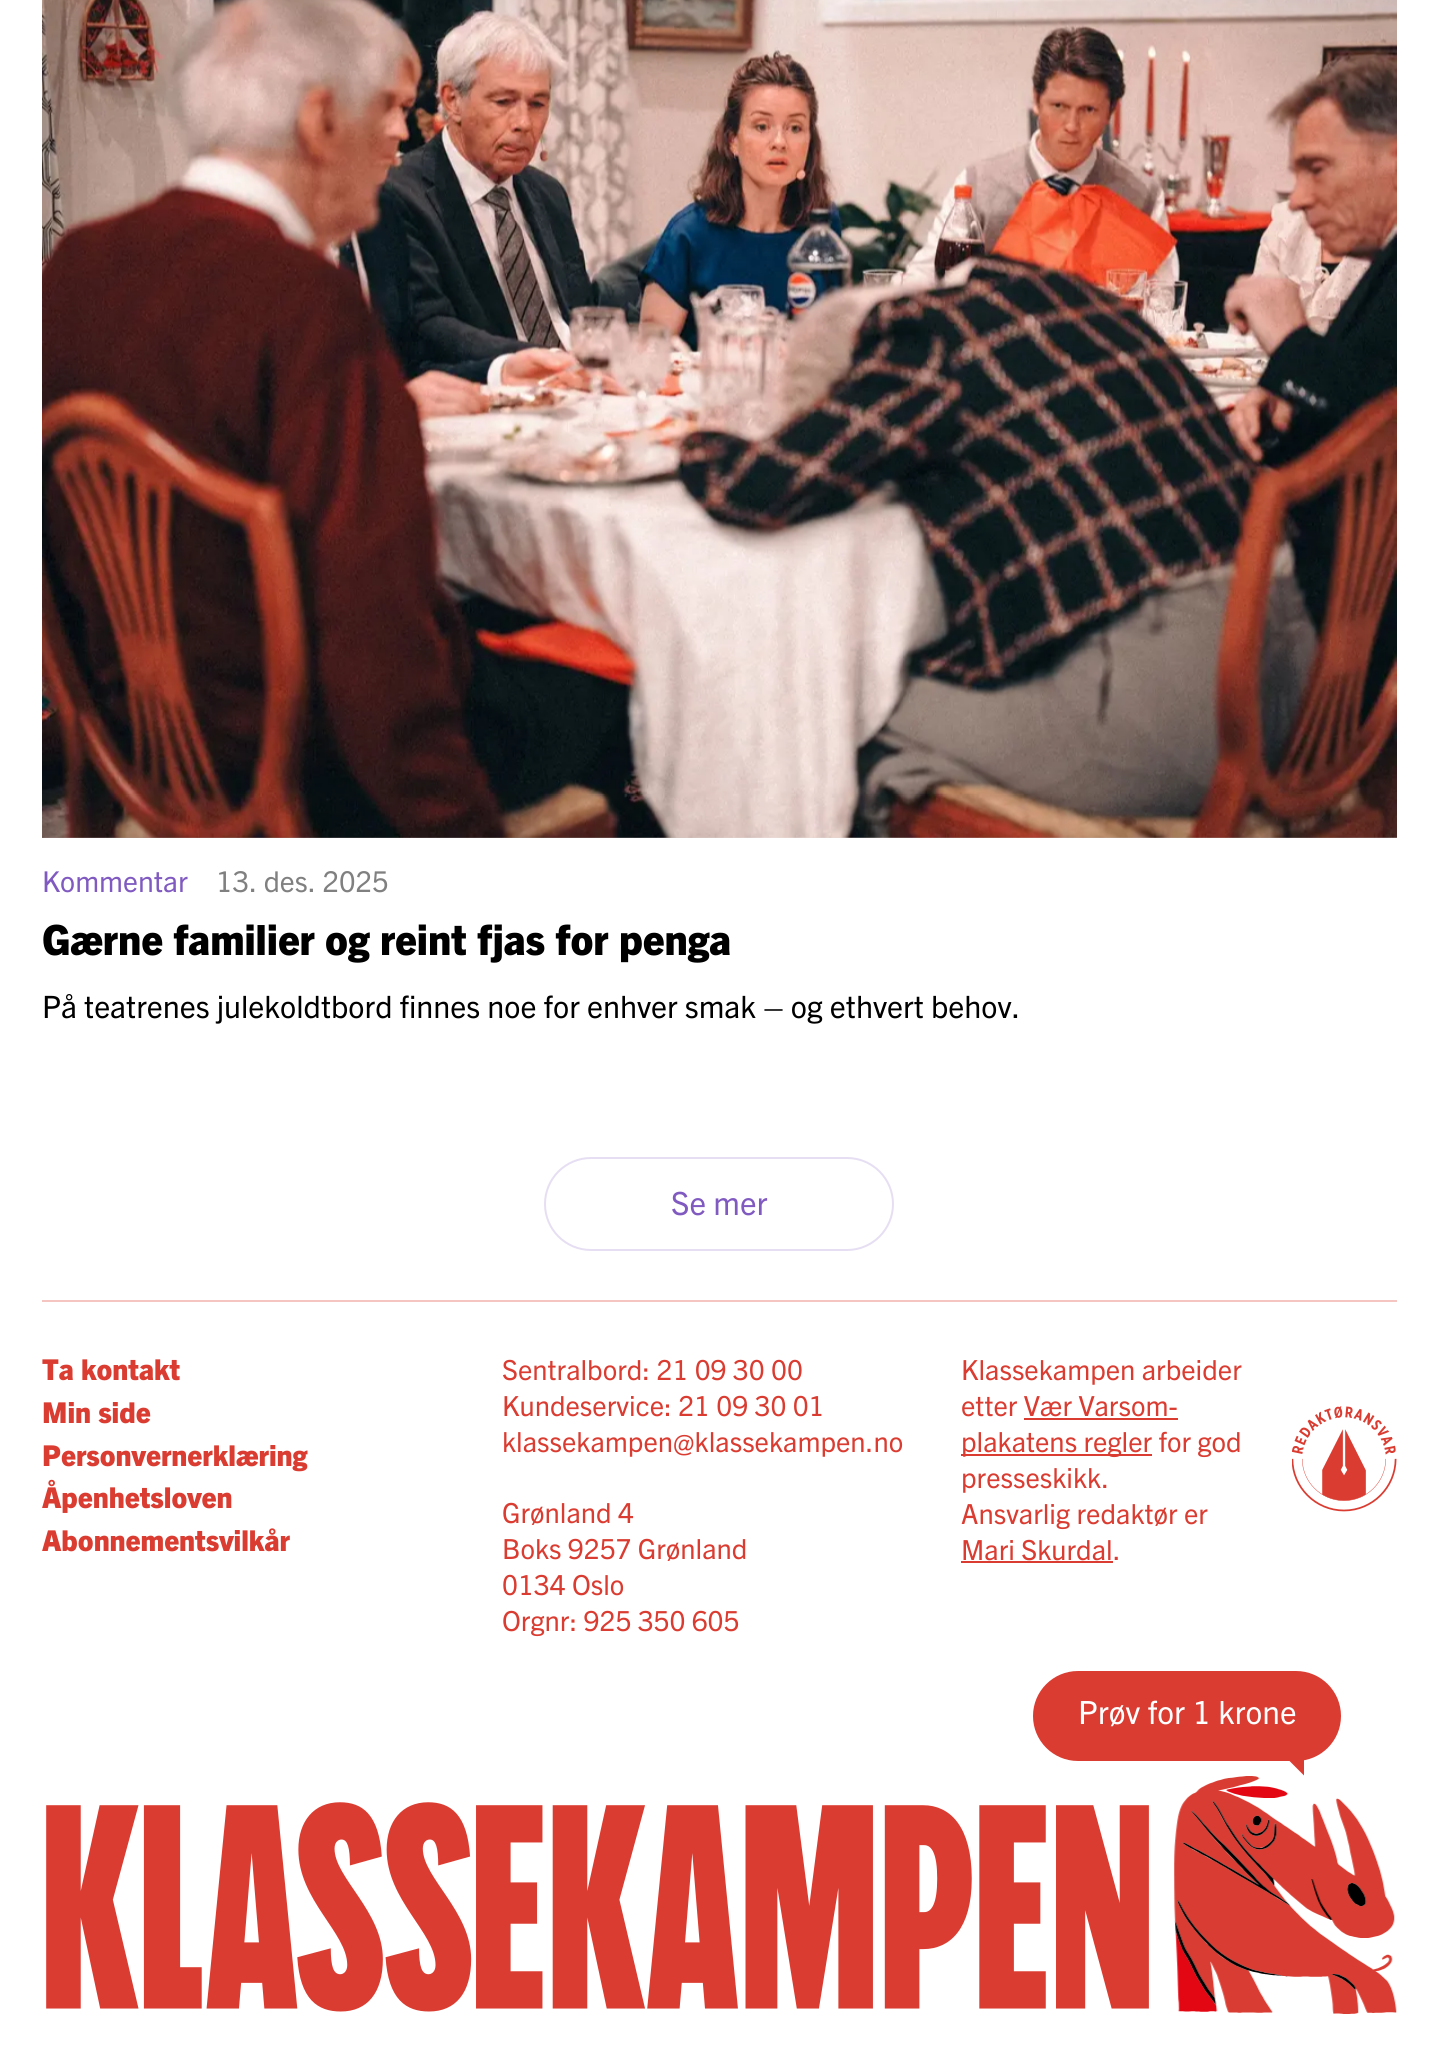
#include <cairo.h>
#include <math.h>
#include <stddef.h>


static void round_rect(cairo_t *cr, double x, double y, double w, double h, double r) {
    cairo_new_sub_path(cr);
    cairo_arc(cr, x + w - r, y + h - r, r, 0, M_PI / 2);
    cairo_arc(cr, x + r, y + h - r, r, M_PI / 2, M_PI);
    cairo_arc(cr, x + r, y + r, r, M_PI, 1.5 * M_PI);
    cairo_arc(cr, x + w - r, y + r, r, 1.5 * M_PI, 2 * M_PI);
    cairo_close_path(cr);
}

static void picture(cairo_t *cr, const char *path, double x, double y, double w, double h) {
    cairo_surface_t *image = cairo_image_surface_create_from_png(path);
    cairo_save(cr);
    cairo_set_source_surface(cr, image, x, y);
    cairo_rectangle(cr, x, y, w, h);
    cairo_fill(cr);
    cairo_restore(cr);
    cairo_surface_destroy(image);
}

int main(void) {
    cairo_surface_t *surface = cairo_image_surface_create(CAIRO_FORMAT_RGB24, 1437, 2063);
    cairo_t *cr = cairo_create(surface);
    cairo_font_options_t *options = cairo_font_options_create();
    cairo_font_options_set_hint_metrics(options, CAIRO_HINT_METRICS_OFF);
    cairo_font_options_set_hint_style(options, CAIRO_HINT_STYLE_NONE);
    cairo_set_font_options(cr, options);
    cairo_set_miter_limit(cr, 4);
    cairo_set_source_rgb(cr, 1, 1, 1);
    cairo_paint(cr);
    picture(cr, "img2.png", 42, 837, 1355, 1);
    picture(cr, "img1.png", 42, 0, 1355, 838);
    cairo_select_font_face(cr, "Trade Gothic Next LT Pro", CAIRO_FONT_SLANT_NORMAL, CAIRO_FONT_WEIGHT_NORMAL);
    cairo_set_font_size(cr, 28.75);
    cairo_set_source_rgb(cr, 0.502, 0.353, 0.753);
    cairo_move_to(cr, 42, 892);
    cairo_show_text(cr, "Kommentar");
    cairo_set_source_rgb(cr, 0.502, 0.502, 0.502);
    cairo_move_to(cr, 216, 892);
    cairo_show_text(cr, "13. des. 2025");
    cairo_select_font_face(cr, "Trade Gothic Next LT Pro ExtraBold", CAIRO_FONT_SLANT_NORMAL, CAIRO_FONT_WEIGHT_NORMAL);
    cairo_set_font_size(cr, 41.75);
    cairo_set_source_rgb(cr, 0, 0, 0);
    cairo_move_to(cr, 42, 955);
    cairo_show_text(cr, "Gærne familier og reint fjas for penga");
    cairo_select_font_face(cr, "Trade Gothic Next LT Pro", CAIRO_FONT_SLANT_NORMAL, CAIRO_FONT_WEIGHT_NORMAL);
    cairo_set_font_size(cr, 30.85);
    cairo_move_to(cr, 42, 1018);
    cairo_show_text(cr, "På teatrenes julekoldtbord finnes noe for enhver smak – og ethvert behov.");
    round_rect(cr, 545, 1158, 348, 92, 46);
    cairo_set_source_rgb(cr, 0.902, 0.871, 0.949);
    cairo_stroke(cr);
    cairo_set_font_size(cr, 32);
    cairo_set_source_rgb(cr, 0.502, 0.353, 0.753);
    cairo_move_to(cr, 671, 1215);
    cairo_show_text(cr, "Se mer");
    cairo_set_source_rgb(cr, 0.957, 0.773, 0.757);
    cairo_rectangle(cr, 42, 1300, 1355, 2);
    cairo_fill(cr);
    cairo_select_font_face(cr, "Trade Gothic Next LT Pro ExtraBold", CAIRO_FONT_SLANT_NORMAL, CAIRO_FONT_WEIGHT_NORMAL);
    cairo_set_font_size(cr, 28.75);
    cairo_set_source_rgb(cr, 0.855, 0.235, 0.192);
    cairo_move_to(cr, 42, 1380);
    cairo_show_text(cr, "Ta kontakt");
    cairo_move_to(cr, 42, 1423);
    cairo_show_text(cr, "Min side");
    cairo_move_to(cr, 42, 1466);
    cairo_show_text(cr, "Personvernerklæring");
    cairo_move_to(cr, 42, 1508);
    cairo_show_text(cr, "Åpenhetsloven");
    cairo_move_to(cr, 42, 1551);
    cairo_show_text(cr, "Abonnementsvilkår");
    cairo_select_font_face(cr, "Trade Gothic Next LT Pro", CAIRO_FONT_SLANT_NORMAL, CAIRO_FONT_WEIGHT_NORMAL);
    cairo_set_font_size(cr, 27.7);
    cairo_move_to(cr, 502, 1380);
    cairo_show_text(cr, "Sentralbord: 21 09 30 00");
    cairo_move_to(cr, 502, 1416);
    cairo_show_text(cr, "Kundeservice: 21 09 30 01");
    cairo_move_to(cr, 502, 1452);
    cairo_show_text(cr, "klassekampen@klassekampen.no");
    cairo_move_to(cr, 502, 1523);
    cairo_show_text(cr, "Grønland 4");
    cairo_move_to(cr, 502, 1559);
    cairo_show_text(cr, "Boks 9257 Grønland");
    cairo_move_to(cr, 502, 1595);
    cairo_show_text(cr, "0134 Oslo");
    cairo_move_to(cr, 502, 1631);
    cairo_show_text(cr, "Orgnr: 925 350 605");
    cairo_move_to(cr, 961, 1380);
    cairo_show_text(cr, "Klassekampen arbeider");
    cairo_move_to(cr, 961, 1416);
    cairo_show_text(cr, "etter Vær Varsom-");
    cairo_rectangle(cr, 961, 1454, 191, 2);
    cairo_fill(cr);
    cairo_move_to(cr, 961, 1452);
    cairo_show_text(cr, "plakatens regler for god");
    cairo_rectangle(cr, 1024, 1418, 154, 2);
    cairo_fill(cr);
    cairo_move_to(cr, 961, 1488);
    cairo_show_text(cr, "presseskikk.");
    cairo_move_to(cr, 961, 1524);
    cairo_show_text(cr, "Ansvarlig redaktør er");
    cairo_move_to(cr, 961, 1560);
    cairo_show_text(cr, "Mari Skurdal.");
    cairo_rectangle(cr, 961, 1561, 152, 2);
    cairo_fill(cr);
    picture(cr, "img3.png", 1292, 1406, 105, 106);
    round_rect(cr, 1034, 1672, 306, 88, 44);
    cairo_fill_preserve(cr);
    cairo_stroke(cr);
    cairo_set_font_size(cr, 32);
    cairo_set_source_rgb(cr, 1, 1, 1);
    cairo_move_to(cr, 1078, 1724);
    cairo_show_text(cr, "Prøv for 1 krone");
    cairo_set_source_rgb(cr, 0.855, 0.235, 0.192);
    cairo_new_path(cr);
    cairo_move_to(cr, 1304, 1775.5);
    cairo_line_to(cr, 1304, 1741);
    cairo_line_to(cr, 1269.5, 1741);
    cairo_close_path(cr);
    cairo_fill(cr);
    picture(cr, "img4.png", 1174, 1776, 223, 238);
    picture(cr, "img5.png", 46, 1802, 1103, 210);
    cairo_surface_write_to_png(surface, "page.png");
    cairo_font_options_destroy(options);
    cairo_destroy(cr);
    cairo_surface_destroy(surface);
    return 0;
}
